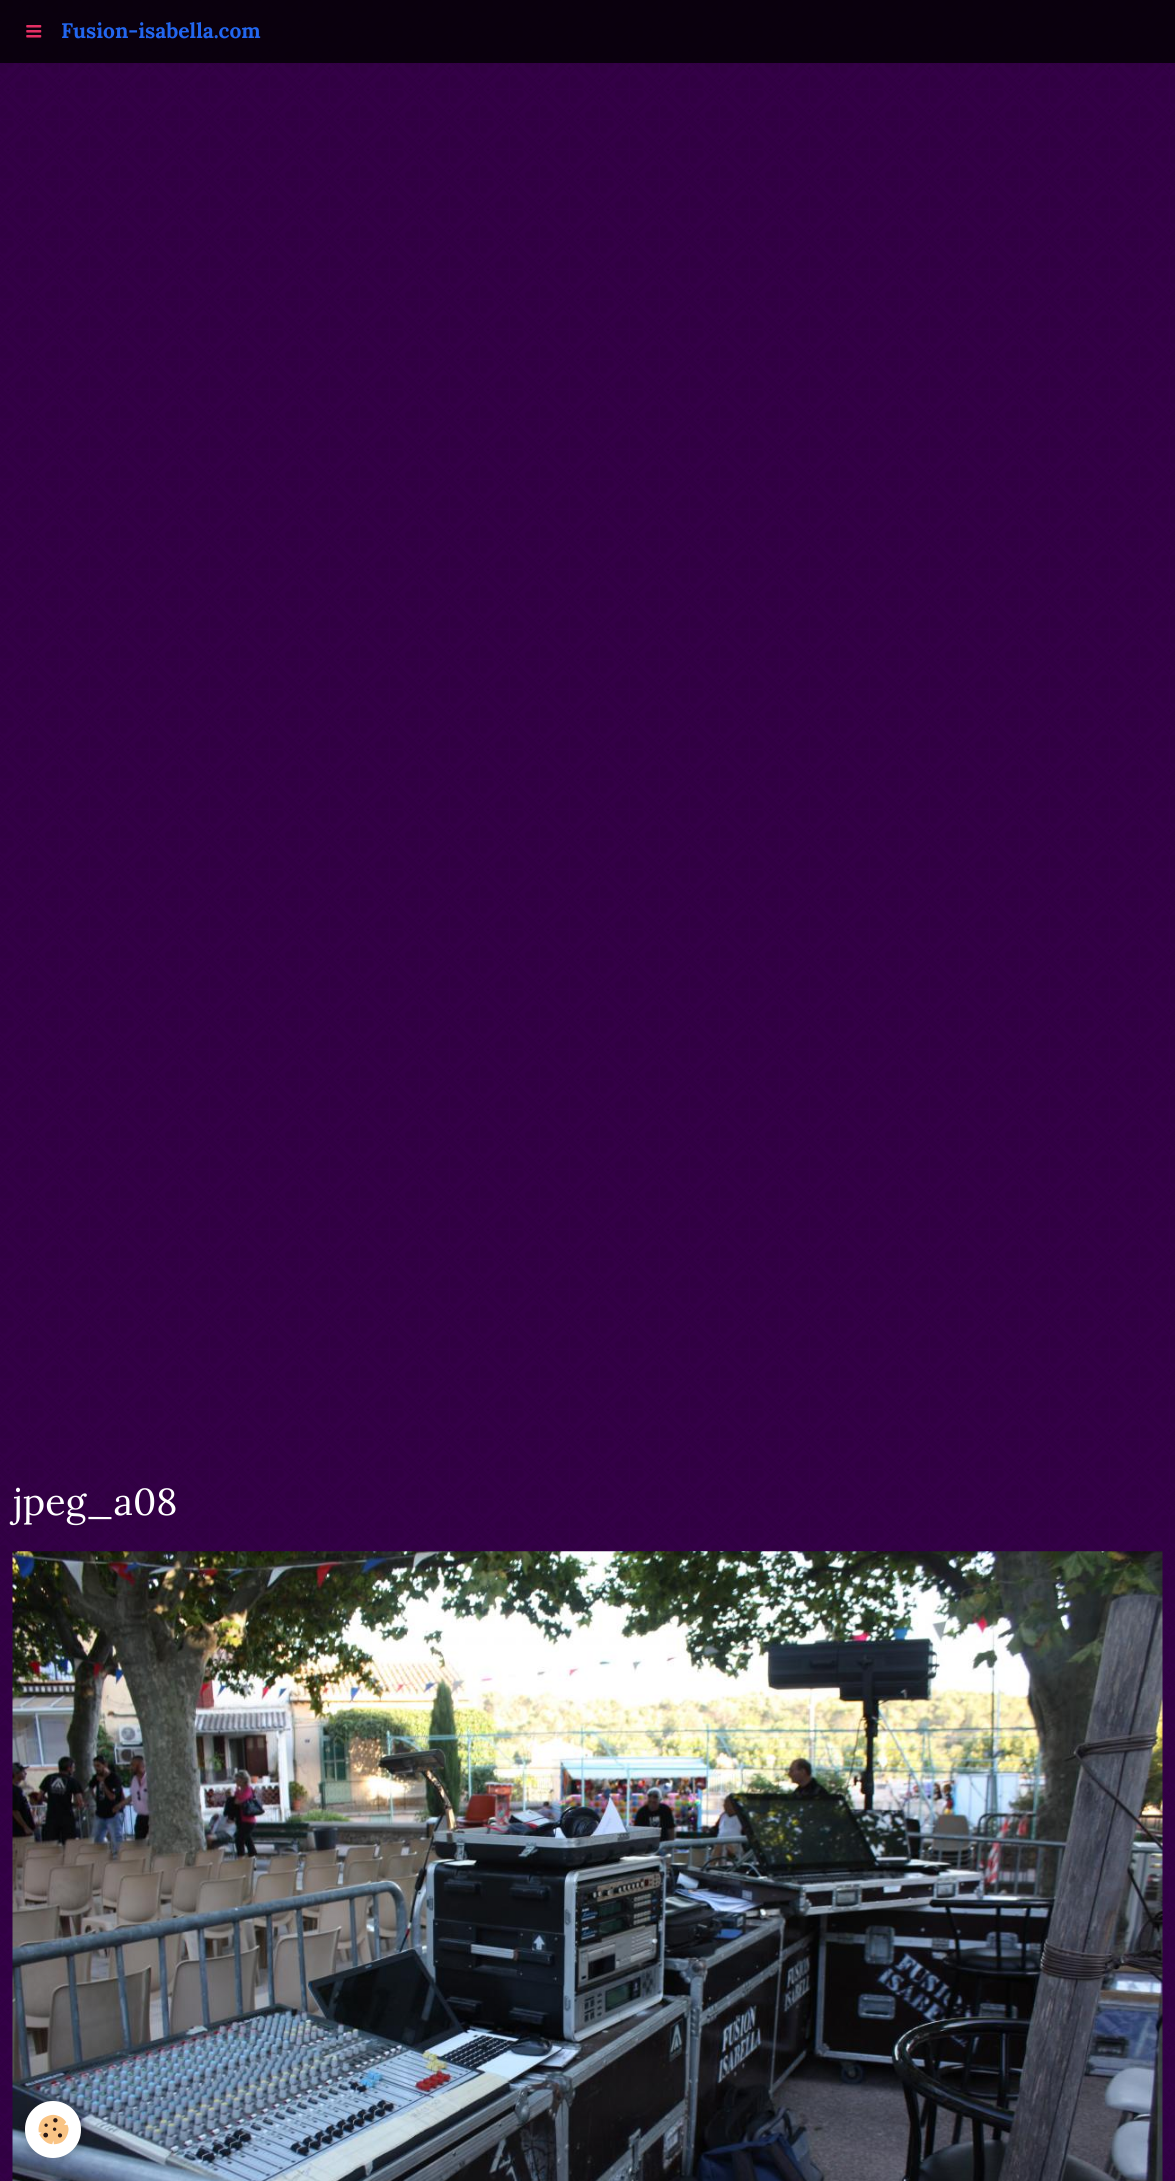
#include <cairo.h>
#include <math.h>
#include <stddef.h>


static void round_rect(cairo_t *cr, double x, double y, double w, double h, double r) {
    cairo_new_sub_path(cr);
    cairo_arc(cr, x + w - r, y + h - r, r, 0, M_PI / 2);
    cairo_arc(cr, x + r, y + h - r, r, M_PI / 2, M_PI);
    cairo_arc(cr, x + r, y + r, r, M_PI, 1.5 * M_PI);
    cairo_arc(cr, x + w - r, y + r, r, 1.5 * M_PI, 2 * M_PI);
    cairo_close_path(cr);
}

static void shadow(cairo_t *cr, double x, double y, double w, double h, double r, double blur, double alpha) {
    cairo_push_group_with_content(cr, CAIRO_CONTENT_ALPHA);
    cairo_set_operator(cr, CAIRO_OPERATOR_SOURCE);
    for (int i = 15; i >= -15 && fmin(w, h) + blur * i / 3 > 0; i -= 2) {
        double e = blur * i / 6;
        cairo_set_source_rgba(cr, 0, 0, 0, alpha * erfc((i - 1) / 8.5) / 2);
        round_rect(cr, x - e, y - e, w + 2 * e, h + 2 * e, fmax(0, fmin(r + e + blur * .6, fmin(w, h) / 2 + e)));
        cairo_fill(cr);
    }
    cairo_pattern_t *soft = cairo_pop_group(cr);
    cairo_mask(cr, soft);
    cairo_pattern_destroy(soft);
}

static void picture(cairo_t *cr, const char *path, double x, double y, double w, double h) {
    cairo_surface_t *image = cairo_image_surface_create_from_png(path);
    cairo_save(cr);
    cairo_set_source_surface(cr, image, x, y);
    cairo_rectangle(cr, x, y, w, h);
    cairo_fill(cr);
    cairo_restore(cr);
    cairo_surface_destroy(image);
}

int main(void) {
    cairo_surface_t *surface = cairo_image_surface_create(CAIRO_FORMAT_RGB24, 1175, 2181);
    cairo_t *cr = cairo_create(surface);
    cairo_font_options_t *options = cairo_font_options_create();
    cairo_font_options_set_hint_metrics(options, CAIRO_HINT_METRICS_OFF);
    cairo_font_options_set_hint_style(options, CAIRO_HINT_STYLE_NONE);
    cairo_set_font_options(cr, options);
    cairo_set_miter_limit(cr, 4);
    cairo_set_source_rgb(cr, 0.204, 0, 0.278);
    cairo_paint(cr);
    picture(cr, "img1.png", 0, 0, 1175, 2181);
    cairo_set_source_rgba(cr, 0, 0, 0, 0.8);
    cairo_rectangle(cr, 0, 0, 1175, 63);
    cairo_fill(cr);
    picture(cr, "img2.png", 26, 25, 16, 13);
    cairo_select_font_face(cr, "Lora", CAIRO_FONT_SLANT_NORMAL, CAIRO_FONT_WEIGHT_BOLD);
    cairo_set_font_size(cr, 21);
    cairo_set_source_rgb(cr, 0.133, 0.4, 0.937);
    cairo_move_to(cr, 61, 38);
    cairo_show_text(cr, "Fusion-isabella.com");
    cairo_select_font_face(cr, "Lora", CAIRO_FONT_SLANT_NORMAL, CAIRO_FONT_WEIGHT_NORMAL);
    cairo_set_font_size(cr, 37.5);
    cairo_set_source_rgb(cr, 1, 1, 1);
    cairo_move_to(cr, 13, 1515);
    cairo_show_text(cr, "jpeg_a08");
    picture(cr, "img3.png", 12, 1551, 1151, 630);
    cairo_set_source_rgb(cr, 0, 0, 0);
    shadow(cr, 25, 2105, 56, 56, 28, 6, 0.24);
    cairo_set_source_rgb(cr, 1, 1, 1);
    round_rect(cr, 25, 2101, 56, 57, 28);
    cairo_fill(cr);
    picture(cr, "img4.png", 38, 2114, 31, 31);
    cairo_surface_write_to_png(surface, "page.png");
    cairo_font_options_destroy(options);
    cairo_destroy(cr);
    cairo_surface_destroy(surface);
    return 0;
}
